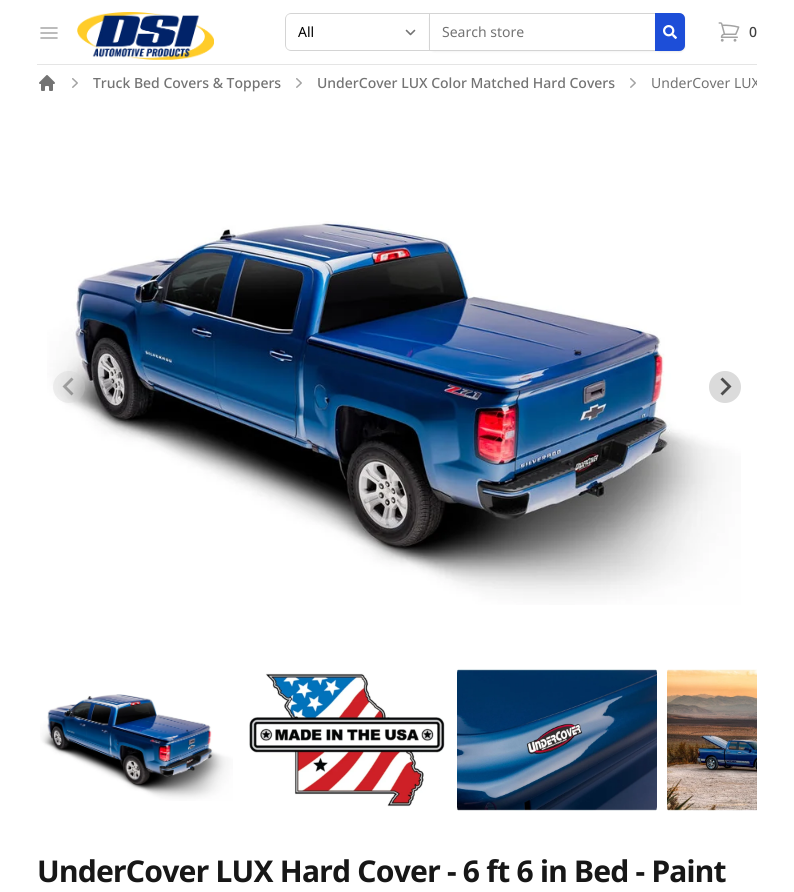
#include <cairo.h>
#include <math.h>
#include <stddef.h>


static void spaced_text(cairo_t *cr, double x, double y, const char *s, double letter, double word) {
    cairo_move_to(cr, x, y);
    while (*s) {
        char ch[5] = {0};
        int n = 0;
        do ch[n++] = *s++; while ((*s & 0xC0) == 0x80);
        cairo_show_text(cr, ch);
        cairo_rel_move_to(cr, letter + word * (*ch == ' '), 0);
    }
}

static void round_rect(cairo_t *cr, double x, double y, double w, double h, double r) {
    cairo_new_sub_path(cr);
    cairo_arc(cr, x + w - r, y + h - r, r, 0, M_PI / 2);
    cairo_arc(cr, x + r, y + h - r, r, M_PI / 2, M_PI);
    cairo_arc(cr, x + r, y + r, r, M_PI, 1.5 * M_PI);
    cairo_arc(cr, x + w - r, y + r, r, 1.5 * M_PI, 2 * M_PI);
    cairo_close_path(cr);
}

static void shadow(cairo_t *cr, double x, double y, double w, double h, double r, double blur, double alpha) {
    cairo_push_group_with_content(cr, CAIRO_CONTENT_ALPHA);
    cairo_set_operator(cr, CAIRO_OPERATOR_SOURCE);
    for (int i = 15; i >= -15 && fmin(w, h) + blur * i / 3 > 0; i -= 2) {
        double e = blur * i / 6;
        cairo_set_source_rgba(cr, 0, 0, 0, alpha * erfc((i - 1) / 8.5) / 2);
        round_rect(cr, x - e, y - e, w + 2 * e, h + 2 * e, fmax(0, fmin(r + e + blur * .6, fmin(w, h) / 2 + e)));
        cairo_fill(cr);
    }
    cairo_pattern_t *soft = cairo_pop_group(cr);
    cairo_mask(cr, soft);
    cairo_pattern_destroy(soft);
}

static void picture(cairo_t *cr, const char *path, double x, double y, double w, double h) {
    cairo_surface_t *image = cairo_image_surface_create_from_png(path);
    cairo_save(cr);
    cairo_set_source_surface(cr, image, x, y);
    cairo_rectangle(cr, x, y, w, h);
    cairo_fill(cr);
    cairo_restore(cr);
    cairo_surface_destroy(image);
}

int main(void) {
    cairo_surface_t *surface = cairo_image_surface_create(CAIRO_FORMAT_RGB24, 794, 892);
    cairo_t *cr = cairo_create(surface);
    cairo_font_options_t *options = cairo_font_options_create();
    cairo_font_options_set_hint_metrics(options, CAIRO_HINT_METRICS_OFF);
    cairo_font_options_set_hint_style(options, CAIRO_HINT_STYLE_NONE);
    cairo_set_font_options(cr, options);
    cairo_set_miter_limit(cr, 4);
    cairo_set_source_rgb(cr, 1, 1, 1);
    cairo_paint(cr);
    cairo_set_source_rgb(cr, 0.898, 0.898, 0.898);
    cairo_rectangle(cr, 37, 64, 720, 1);
    cairo_fill(cr);
    cairo_new_path(cr);
    cairo_move_to(cr, 41, 28);
    cairo_line_to(cr, 57, 28);
    cairo_move_to(cr, 41, 33);
    cairo_line_to(cr, 57, 33);
    cairo_move_to(cr, 41, 38);
    cairo_line_to(cr, 57, 38);
    cairo_set_source_rgb(cr, 0.639, 0.639, 0.639);
    cairo_set_line_width(cr, 1.5);
    cairo_set_line_cap(cr, CAIRO_LINE_CAP_ROUND);
    cairo_set_line_join(cr, CAIRO_LINE_JOIN_ROUND);
    cairo_stroke(cr);
    picture(cr, "img1.png", 77, 12, 137, 48);
    cairo_new_path(cr);
    cairo_move_to(cr, 406.5, 30.5);
    cairo_line_to(cr, 410.5, 34.5);
    cairo_line_to(cr, 414.5, 30.5);
    cairo_set_source_rgb(cr, 0.451, 0.451, 0.451);
    cairo_set_line_width(cr, 1.6);
    cairo_stroke(cr);
    cairo_set_source_rgb(cr, 0.831, 0.831, 0.831);
    cairo_set_fill_rule(cr, CAIRO_FILL_RULE_EVEN_ODD);
    cairo_new_path(cr);
    cairo_move_to(cr, 291, 13);
    cairo_line_to(cr, 429, 13);
    cairo_line_to(cr, 429, 51);
    cairo_line_to(cr, 291, 51);
    cairo_curve_to(cr, 288, 51, 285, 48, 285, 45);
    cairo_line_to(cr, 285, 19);
    cairo_curve_to(cr, 285, 16, 288, 13, 291, 13);
    cairo_close_path(cr);
    cairo_move_to(cr, 291, 14);
    cairo_line_to(cr, 429, 14);
    cairo_line_to(cr, 429, 50);
    cairo_line_to(cr, 291, 50);
    cairo_curve_to(cr, 288, 50, 286, 48, 286, 45);
    cairo_line_to(cr, 286, 19);
    cairo_curve_to(cr, 286, 16, 288, 14, 291, 14);
    cairo_close_path(cr);
    cairo_fill(cr);
    cairo_select_font_face(cr, "Noto Sans", CAIRO_FONT_SLANT_NORMAL, CAIRO_FONT_WEIGHT_NORMAL);
    cairo_set_font_size(cr, 14);
    cairo_set_source_rgb(cr, 0, 0, 0);
    cairo_move_to(cr, 298, 37);
    cairo_show_text(cr, "All");
    cairo_set_source_rgb(cr, 0, 0, 0);
    shadow(cr, 429, 14, 256, 38, 6, 1, 0.05);
    cairo_set_source_rgb(cr, 1, 1, 1);
    cairo_new_path(cr);
    cairo_move_to(cr, 429.5, 13.5);
    cairo_line_to(cr, 679, 13.5);
    cairo_curve_to(cr, 682, 13.5, 684.5, 16, 684.5, 19);
    cairo_line_to(cr, 684.5, 45);
    cairo_curve_to(cr, 684.5, 48, 682, 50.5, 679, 50.5);
    cairo_line_to(cr, 429.5, 50.5);
    cairo_close_path(cr);
    cairo_fill_preserve(cr);
    cairo_set_source_rgb(cr, 0.831, 0.831, 0.831);
    cairo_set_line_width(cr, 1);
    cairo_set_line_cap(cr, CAIRO_LINE_CAP_BUTT);
    cairo_set_line_join(cr, CAIRO_LINE_JOIN_MITER);
    cairo_stroke(cr);
    cairo_set_source_rgb(cr, 0.451, 0.451, 0.451);
    cairo_move_to(cr, 442, 37);
    cairo_show_text(cr, "Search store");
    cairo_set_source_rgb(cr, 0, 0, 0);
    shadow(cr, 655, 14, 30, 38, 6, 1, 0.05);
    cairo_set_source_rgb(cr, 0.114, 0.306, 0.847);
    cairo_new_path(cr);
    cairo_move_to(cr, 655, 13);
    cairo_line_to(cr, 679, 13);
    cairo_curve_to(cr, 682.5, 13, 685, 15.5, 685, 19);
    cairo_line_to(cr, 685, 45);
    cairo_curve_to(cr, 685, 48.5, 682.5, 51, 679, 51);
    cairo_line_to(cr, 655, 51);
    cairo_close_path(cr);
    cairo_fill(cr);
    picture(cr, "img2.png", 663, 25, 14, 14);
    picture(cr, "img3.png", 718, 22, 22, 20);
    cairo_select_font_face(cr, "Noto Sans Medium", CAIRO_FONT_SLANT_NORMAL, CAIRO_FONT_WEIGHT_NORMAL);
    cairo_set_source_rgb(cr, 0.251, 0.251, 0.251);
    cairo_move_to(cr, 749, 37);
    cairo_show_text(cr, "0");
    picture(cr, "img4.png", 39, 75, 16, 16);
    picture(cr, "img5.png", 72, 78, 6, 10);
    cairo_set_source_rgb(cr, 0.451, 0.451, 0.451);
    cairo_move_to(cr, 93, 88);
    cairo_show_text(cr, "Truck Bed Covers & Toppers");
    picture(cr, "img5.png", 296, 78, 6, 10);
    cairo_move_to(cr, 317, 88);
    cairo_show_text(cr, "UnderCover LUX Color Matched Hard Covers");
    picture(cr, "img5.png", 630, 78, 6, 10);
    cairo_save(cr);
    cairo_set_fill_rule(cr, CAIRO_FILL_RULE_WINDING);
    cairo_rectangle(cr, 37, 65, 720, 36);
    cairo_clip(cr);
    cairo_select_font_face(cr, "Noto Sans", CAIRO_FONT_SLANT_NORMAL, CAIRO_FONT_WEIGHT_NORMAL);
    cairo_move_to(cr, 651, 88);
    cairo_show_text(cr, "UnderCover LUX");
    cairo_restore(cr);
    picture(cr, "img6.png", 47, 221, 694, 384);
    cairo_set_source_rgba(cr, 0.8, 0.8, 0.8, 0.3);
    cairo_arc(cr, 69, 387, 16, 0, 2 * M_PI);
    cairo_fill(cr);
    cairo_set_source_rgba(cr, 0, 0, 0, 0.3);
    cairo_set_fill_rule(cr, CAIRO_FILL_RULE_WINDING);
    cairo_new_path(cr);
    cairo_move_to(cr, 71.5, 377.5);
    cairo_line_to(cr, 73.5, 379.5);
    cairo_line_to(cr, 66.5, 386.5);
    cairo_line_to(cr, 73.5, 393.5);
    cairo_line_to(cr, 71.5, 395.5);
    cairo_line_to(cr, 62.5, 386.5);
    cairo_close_path(cr);
    cairo_fill(cr);
    cairo_set_source_rgb(cr, 0.859, 0.859, 0.859);
    cairo_arc(cr, 725, 387, 16, 0, 2 * M_PI);
    cairo_fill(cr);
    cairo_set_source_rgb(cr, 0.302, 0.302, 0.302);
    cairo_new_path(cr);
    cairo_move_to(cr, 722.5, 377.5);
    cairo_line_to(cr, 720.5, 379.5);
    cairo_line_to(cr, 727.5, 386.5);
    cairo_line_to(cr, 720.5, 393.5);
    cairo_line_to(cr, 722.5, 395.5);
    cairo_line_to(cr, 731.5, 386.5);
    cairo_close_path(cr);
    cairo_fill(cr);
    picture(cr, "img7.png", 40, 694, 193, 107);
    picture(cr, "img8.png", 249, 673, 196, 134);
    picture(cr, "img9.png", 457, 669, 200, 142);
    picture(cr, "img10.png", 667, 669, 90, 142);
    cairo_select_font_face(cr, "Noto Sans", CAIRO_FONT_SLANT_NORMAL, CAIRO_FONT_WEIGHT_BOLD);
    cairo_set_font_size(cr, 30);
    cairo_set_source_rgb(cr, 0.09, 0.09, 0.09);
    spaced_text(cr, 37, 882, "UnderCover LUX Hard Cover - 6 ft 6 in Bed - Paint", -0.75, 0);
    cairo_surface_write_to_png(surface, "page.png");
    cairo_font_options_destroy(options);
    cairo_destroy(cr);
    cairo_surface_destroy(surface);
    return 0;
}
